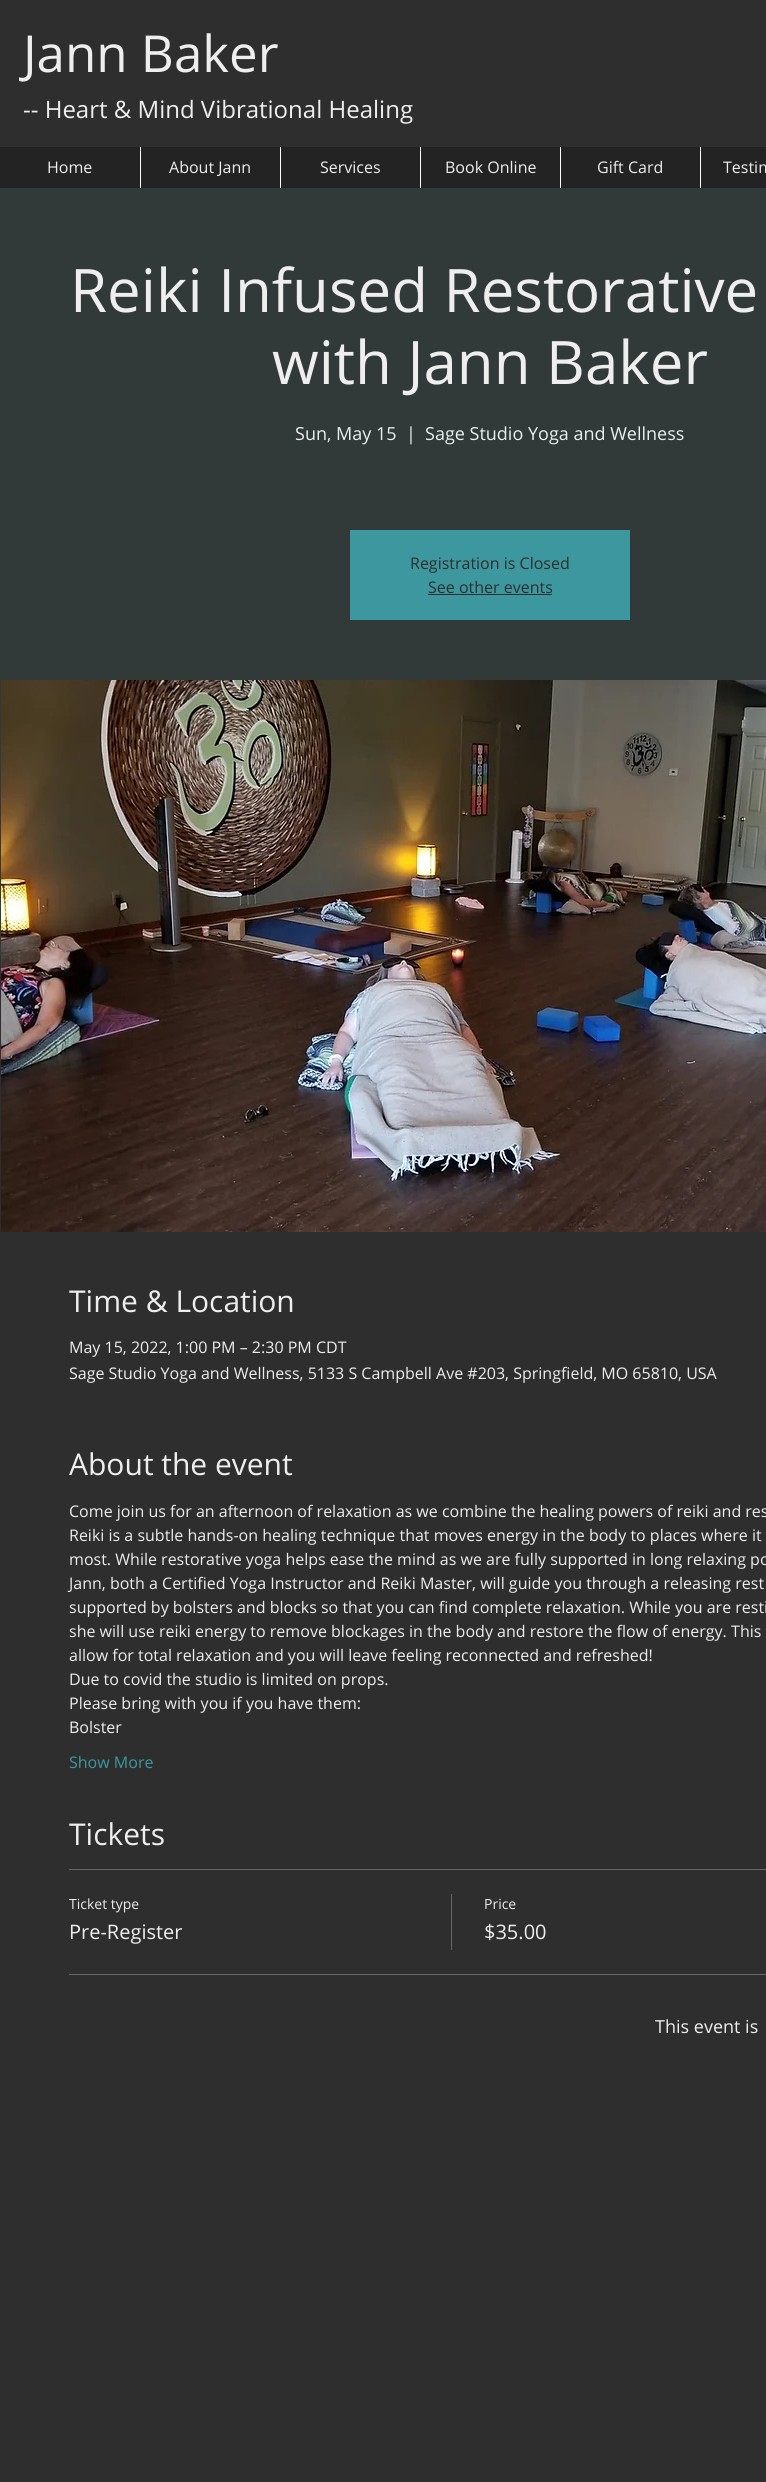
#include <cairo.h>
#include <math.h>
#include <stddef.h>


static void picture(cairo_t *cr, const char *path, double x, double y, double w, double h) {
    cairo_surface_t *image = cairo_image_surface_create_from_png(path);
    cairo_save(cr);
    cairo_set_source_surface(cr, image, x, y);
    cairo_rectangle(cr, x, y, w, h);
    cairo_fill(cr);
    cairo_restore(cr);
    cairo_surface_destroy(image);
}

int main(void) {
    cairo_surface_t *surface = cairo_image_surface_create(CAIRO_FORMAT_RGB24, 766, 2482);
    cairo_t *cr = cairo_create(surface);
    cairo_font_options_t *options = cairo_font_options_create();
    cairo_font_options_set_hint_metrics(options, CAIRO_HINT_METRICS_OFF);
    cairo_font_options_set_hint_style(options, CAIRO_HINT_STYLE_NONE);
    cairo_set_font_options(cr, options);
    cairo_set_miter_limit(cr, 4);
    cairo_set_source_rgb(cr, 0.184, 0.18, 0.18);
    cairo_paint(cr);
    cairo_select_font_face(cr, "Open Sans", CAIRO_FONT_SLANT_NORMAL, CAIRO_FONT_WEIGHT_NORMAL);
    cairo_set_font_size(cr, 51);
    cairo_set_source_rgb(cr, 0.933, 0.933, 0.933);
    cairo_move_to(cr, 23, 72);
    cairo_show_text(cr, "Jann Baker");
    cairo_set_font_size(cr, 24);
    cairo_move_to(cr, 23, 118);
    cairo_show_text(cr, "-- Heart & Mind Vibrational Healing");
    cairo_set_source_rgb(cr, 0.141, 0.137, 0.137);
    cairo_rectangle(cr, 0, 147, 766, 41);
    cairo_fill(cr);
    cairo_set_font_size(cr, 16);
    cairo_set_source_rgb(cr, 0.933, 0.933, 0.933);
    cairo_move_to(cr, 47, 173);
    cairo_show_text(cr, "Home");
    cairo_set_source_rgb(cr, 1, 1, 1);
    cairo_rectangle(cr, 140, 147, 1, 41);
    cairo_fill(cr);
    cairo_set_source_rgb(cr, 0.933, 0.933, 0.933);
    cairo_move_to(cr, 169, 173);
    cairo_show_text(cr, "About Jann");
    cairo_set_source_rgb(cr, 1, 1, 1);
    cairo_rectangle(cr, 280, 147, 1, 41);
    cairo_fill(cr);
    cairo_set_source_rgb(cr, 0.933, 0.933, 0.933);
    cairo_move_to(cr, 320, 173);
    cairo_show_text(cr, "Services");
    cairo_set_source_rgb(cr, 1, 1, 1);
    cairo_rectangle(cr, 420, 147, 1, 41);
    cairo_fill(cr);
    cairo_set_source_rgb(cr, 0.933, 0.933, 0.933);
    cairo_move_to(cr, 445, 173);
    cairo_show_text(cr, "Book Online");
    cairo_set_source_rgb(cr, 1, 1, 1);
    cairo_rectangle(cr, 560, 147, 1, 41);
    cairo_fill(cr);
    cairo_set_source_rgb(cr, 0.933, 0.933, 0.933);
    cairo_move_to(cr, 597, 173);
    cairo_show_text(cr, "Gift Card");
    cairo_set_source_rgb(cr, 1, 1, 1);
    cairo_rectangle(cr, 700, 147, 1, 41);
    cairo_fill(cr);
    cairo_set_source_rgb(cr, 0.933, 0.933, 0.933);
    cairo_move_to(cr, 723, 173);
    cairo_show_text(cr, "Testim");
    cairo_set_source_rgb(cr, 0.192, 0.224, 0.224);
    cairo_rectangle(cr, 0, 188, 766, 768);
    cairo_fill(cr);
    cairo_set_font_size(cr, 60);
    cairo_set_source_rgb(cr, 0.933, 0.933, 0.933);
    cairo_move_to(cr, 70, 312);
    cairo_show_text(cr, "Reiki Infused Restorative");
    cairo_move_to(cr, 272, 384);
    cairo_show_text(cr, "with Jann Baker");
    cairo_set_font_size(cr, 18);
    cairo_move_to(cr, 295, 440);
    cairo_show_text(cr, "Sun, May 15");
    cairo_move_to(cr, 406, 440);
    cairo_show_text(cr, "|");
    cairo_move_to(cr, 425, 440);
    cairo_show_text(cr, "Sage Studio Yoga and Wellness");
    cairo_set_source_rgb(cr, 0.239, 0.592, 0.62);
    cairo_rectangle(cr, 350, 530, 280, 90);
    cairo_fill(cr);
    cairo_set_font_size(cr, 16);
    cairo_set_source_rgb(cr, 0.184, 0.18, 0.18);
    cairo_move_to(cr, 410, 569);
    cairo_show_text(cr, "Registration is Closed");
    cairo_move_to(cr, 428, 593);
    cairo_show_text(cr, "See other events");
    cairo_rectangle(cr, 428, 594, 124, 1);
    cairo_fill(cr);
    picture(cr, "img1.png", 1, 680, 765, 552);
    cairo_set_font_size(cr, 30);
    cairo_set_source_rgb(cr, 0.933, 0.933, 0.933);
    cairo_move_to(cr, 69, 1312);
    cairo_show_text(cr, "Time & Location");
    cairo_set_font_size(cr, 16);
    cairo_move_to(cr, 69, 1353);
    cairo_show_text(cr, "May 15, 2022, 1:00 PM – 2:30 PM CDT");
    cairo_move_to(cr, 69, 1379);
    cairo_show_text(cr, "Sage Studio Yoga and Wellness, 5133 S Campbell Ave #203, Springfield, MO 65810, USA");
    cairo_set_font_size(cr, 30);
    cairo_move_to(cr, 69, 1475);
    cairo_show_text(cr, "About the event");
    cairo_set_font_size(cr, 16);
    cairo_move_to(cr, 69, 1517);
    cairo_show_text(cr, "Come join us for an afternoon of relaxation as we combine the healing powers of reiki and res");
    cairo_move_to(cr, 69, 1541);
    cairo_show_text(cr, "Reiki is a subtle hands-on healing technique that moves energy in the body to places where it");
    cairo_move_to(cr, 69, 1565);
    cairo_show_text(cr, "most. While restorative yoga helps ease the mind as we are fully supported in long relaxing po");
    cairo_move_to(cr, 69, 1589);
    cairo_show_text(cr, "Jann, both a Certified Yoga Instructor and Reiki Master, will guide you through a releasing rest");
    cairo_move_to(cr, 69, 1613);
    cairo_show_text(cr, "supported by bolsters and blocks so that you can find complete relaxation. While you are resti");
    cairo_move_to(cr, 69, 1637);
    cairo_show_text(cr, "she will use reiki energy to remove blockages in the body and restore the flow of energy. This");
    cairo_move_to(cr, 69, 1661);
    cairo_show_text(cr, "allow for total relaxation and you will leave feeling reconnected and refreshed!");
    cairo_move_to(cr, 69, 1685);
    cairo_show_text(cr, "Due to covid the studio is limited on props.");
    cairo_move_to(cr, 69, 1709);
    cairo_show_text(cr, "Please bring with you if you have them:");
    cairo_move_to(cr, 69, 1733);
    cairo_show_text(cr, "Bolster");
    cairo_set_source_rgb(cr, 0.239, 0.592, 0.62);
    cairo_move_to(cr, 69, 1768);
    cairo_show_text(cr, "Show More");
    cairo_set_font_size(cr, 30);
    cairo_set_source_rgb(cr, 0.933, 0.933, 0.933);
    cairo_move_to(cr, 69, 1845);
    cairo_show_text(cr, "Tickets");
    cairo_set_source_rgb(cr, 0.408, 0.408, 0.408);
    cairo_rectangle(cr, 69, 1869, 697, 1);
    cairo_fill(cr);
    cairo_rectangle(cr, 69, 1974, 697, 1);
    cairo_fill(cr);
    cairo_set_font_size(cr, 14);
    cairo_set_source_rgb(cr, 0.933, 0.933, 0.933);
    cairo_move_to(cr, 69, 1909);
    cairo_show_text(cr, "Ticket type");
    cairo_set_font_size(cr, 20);
    cairo_move_to(cr, 69, 1939);
    cairo_show_text(cr, "Pre-Register");
    cairo_set_source_rgb(cr, 0.408, 0.408, 0.408);
    cairo_rectangle(cr, 451, 1894, 1, 56);
    cairo_fill(cr);
    cairo_set_font_size(cr, 14);
    cairo_set_source_rgb(cr, 0.933, 0.933, 0.933);
    cairo_move_to(cr, 484, 1909);
    cairo_show_text(cr, "Price");
    cairo_set_font_size(cr, 20);
    cairo_move_to(cr, 484, 1939);
    cairo_show_text(cr, "$35.00");
    cairo_set_font_size(cr, 18);
    cairo_move_to(cr, 655, 2033);
    cairo_show_text(cr, "This event is");
    cairo_surface_write_to_png(surface, "page.png");
    cairo_font_options_destroy(options);
    cairo_destroy(cr);
    cairo_surface_destroy(surface);
    return 0;
}
